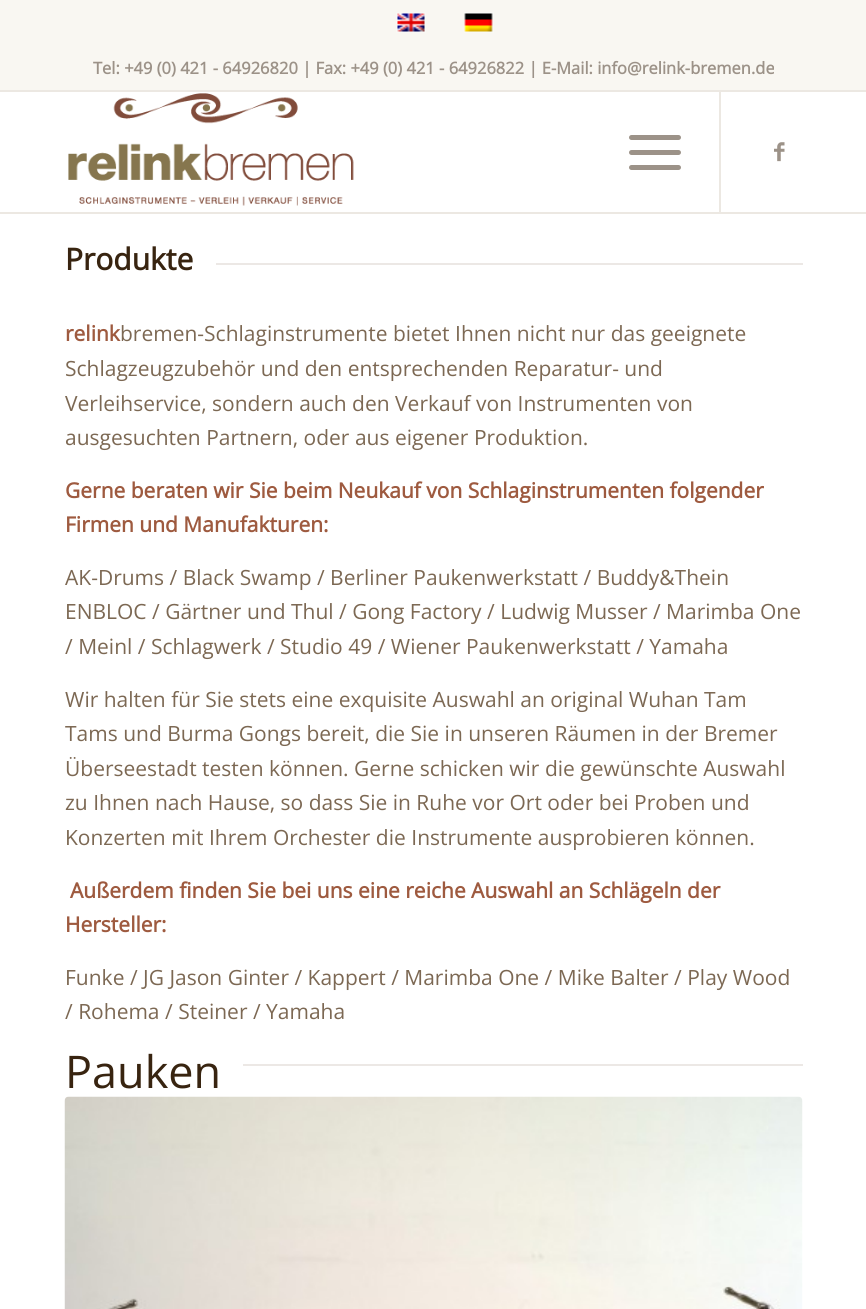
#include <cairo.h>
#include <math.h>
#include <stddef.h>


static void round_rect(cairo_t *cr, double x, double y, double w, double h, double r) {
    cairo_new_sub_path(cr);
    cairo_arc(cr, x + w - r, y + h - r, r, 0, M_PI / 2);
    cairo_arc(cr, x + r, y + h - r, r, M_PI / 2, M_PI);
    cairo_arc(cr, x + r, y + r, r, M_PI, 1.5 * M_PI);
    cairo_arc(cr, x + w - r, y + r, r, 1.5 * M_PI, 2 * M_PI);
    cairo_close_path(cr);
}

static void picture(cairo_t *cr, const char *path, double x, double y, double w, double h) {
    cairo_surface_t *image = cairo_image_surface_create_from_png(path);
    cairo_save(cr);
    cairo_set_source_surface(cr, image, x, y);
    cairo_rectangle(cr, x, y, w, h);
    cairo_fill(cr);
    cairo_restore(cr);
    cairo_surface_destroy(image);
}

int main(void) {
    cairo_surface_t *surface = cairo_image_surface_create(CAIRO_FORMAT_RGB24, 866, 1309);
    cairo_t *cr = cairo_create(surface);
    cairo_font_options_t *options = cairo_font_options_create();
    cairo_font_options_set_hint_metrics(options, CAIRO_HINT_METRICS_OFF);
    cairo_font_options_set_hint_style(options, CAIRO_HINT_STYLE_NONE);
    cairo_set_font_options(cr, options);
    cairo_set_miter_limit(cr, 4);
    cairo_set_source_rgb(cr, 1, 1, 1);
    cairo_paint(cr);
    cairo_set_source_rgb(cr, 0.973, 0.965, 0.949);
    cairo_rectangle(cr, 0, 0, 866, 90);
    cairo_fill(cr);
    cairo_set_source_rgb(cr, 0.922, 0.91, 0.886);
    cairo_rectangle(cr, 0, 90, 866, 2);
    cairo_fill(cr);
    cairo_rectangle(cr, 397, 13, 28, 19);
    cairo_set_source_rgb(cr, 0.976, 0.973, 0.961);
    cairo_stroke(cr);
    picture(cr, "img1.png", 397, 13, 28, 19);
    cairo_rectangle(cr, 465, 13, 28, 19);
    cairo_stroke(cr);
    picture(cr, "img2.png", 464, 13, 29, 19);
    cairo_select_font_face(cr, "Open Sans", CAIRO_FONT_SLANT_NORMAL, CAIRO_FONT_WEIGHT_BOLD);
    cairo_set_font_size(cr, 16.5);
    cairo_set_source_rgb(cr, 0.612, 0.573, 0.533);
    cairo_move_to(cr, 93, 74);
    cairo_show_text(cr, "Tel: +49 (0) 421 - 64926820 | Fax: +49 (0) 421 - 64926822 | E-Mail: info@relink-bremen.de");
    cairo_set_source_rgb(cr, 0.922, 0.91, 0.886);
    cairo_rectangle(cr, 0, 212, 866, 2);
    cairo_fill(cr);
    picture(cr, "img3.png", 68, 93, 286, 113);
    cairo_rectangle(cr, 719, 92, 2, 120);
    cairo_fill(cr);
    cairo_set_source_rgb(cr, 0.612, 0.573, 0.533);
    round_rect(cr, 629, 150, 52, 5, 2.5);
    cairo_fill(cr);
    round_rect(cr, 629, 135, 52, 5, 2.5);
    cairo_fill(cr);
    round_rect(cr, 629, 165, 52, 5, 2.5);
    cairo_fill(cr);
    picture(cr, "img4.png", 774, 142, 11, 20);
    cairo_set_font_size(cr, 30);
    cairo_set_source_rgb(cr, 0.22, 0.141, 0.063);
    cairo_move_to(cr, 65, 270);
    cairo_show_text(cr, "Produkte");
    cairo_set_source_rgb(cr, 0.922, 0.91, 0.898);
    cairo_rectangle(cr, 216, 263, 587, 2);
    cairo_fill(cr);
    cairo_set_font_size(cr, 21);
    cairo_set_source_rgb(cr, 0.62, 0.353, 0.247);
    cairo_move_to(cr, 65, 341);
    cairo_show_text(cr, "relink");
    cairo_select_font_face(cr, "Open Sans", CAIRO_FONT_SLANT_NORMAL, CAIRO_FONT_WEIGHT_NORMAL);
    cairo_set_source_rgb(cr, 0.486, 0.408, 0.325);
    cairo_move_to(cr, 120, 341);
    cairo_show_text(cr, "bremen-Schlaginstrumente bietet Ihnen nicht nur das geeignete");
    cairo_move_to(cr, 65, 376);
    cairo_show_text(cr, "Schlagzeugzubehör und den entsprechenden Reparatur- und");
    cairo_move_to(cr, 65, 411);
    cairo_show_text(cr, "Verleihservice, sondern auch den Verkauf von Instrumenten von");
    cairo_move_to(cr, 65, 445);
    cairo_show_text(cr, "ausgesuchten Partnern, oder aus eigener Produktion.");
    cairo_select_font_face(cr, "Open Sans", CAIRO_FONT_SLANT_NORMAL, CAIRO_FONT_WEIGHT_BOLD);
    cairo_set_source_rgb(cr, 0.62, 0.353, 0.247);
    cairo_move_to(cr, 65, 498);
    cairo_show_text(cr, "Gerne beraten wir Sie beim Neukauf von Schlaginstrumenten folgender");
    cairo_move_to(cr, 65, 532);
    cairo_show_text(cr, "Firmen und Manufakturen:");
    cairo_select_font_face(cr, "Open Sans", CAIRO_FONT_SLANT_NORMAL, CAIRO_FONT_WEIGHT_NORMAL);
    cairo_set_source_rgb(cr, 0.486, 0.408, 0.325);
    cairo_move_to(cr, 65, 585);
    cairo_show_text(cr, "AK-Drums / Black Swamp / Berliner Paukenwerkstatt / Buddy&Thein");
    cairo_move_to(cr, 65, 619);
    cairo_show_text(cr, "ENBLOC / Gärtner und Thul / Gong Factory / Ludwig Musser / Marimba One");
    cairo_move_to(cr, 65, 654);
    cairo_show_text(cr, "/ Meinl / Schlagwerk / Studio 49 / Wiener Paukenwerkstatt / Yamaha");
    cairo_move_to(cr, 65, 707);
    cairo_show_text(cr, "Wir halten für Sie stets eine exquisite Auswahl an original Wuhan Tam");
    cairo_move_to(cr, 65, 741);
    cairo_show_text(cr, "Tams und Burma Gongs bereit, die Sie in unseren Räumen in der Bremer");
    cairo_move_to(cr, 65, 776);
    cairo_show_text(cr, "Überseestadt testen können. Gerne schicken wir die gewünschte Auswahl");
    cairo_move_to(cr, 65, 810);
    cairo_show_text(cr, "zu Ihnen nach Hause, so dass Sie in Ruhe vor Ort oder bei Proben und");
    cairo_move_to(cr, 65, 845);
    cairo_show_text(cr, "Konzerten mit Ihrem Orchester die Instrumente ausprobieren können.");
    cairo_select_font_face(cr, "Open Sans", CAIRO_FONT_SLANT_NORMAL, CAIRO_FONT_WEIGHT_BOLD);
    cairo_set_source_rgb(cr, 0.62, 0.353, 0.247);
    cairo_move_to(cr, 70, 898);
    cairo_show_text(cr, "Außerdem finden Sie bei uns eine reiche Auswahl an Schlägeln der");
    cairo_move_to(cr, 65, 932);
    cairo_show_text(cr, "Hersteller:");
    cairo_select_font_face(cr, "Open Sans", CAIRO_FONT_SLANT_NORMAL, CAIRO_FONT_WEIGHT_NORMAL);
    cairo_set_source_rgb(cr, 0.486, 0.408, 0.325);
    cairo_move_to(cr, 65, 985);
    cairo_show_text(cr, "Funke / JG Jason Ginter / Kappert / Marimba One / Mike Balter / Play Wood");
    cairo_move_to(cr, 65, 1019);
    cairo_show_text(cr, "/ Rohema / Steiner / Yamaha");
    cairo_set_font_size(cr, 45);
    cairo_set_source_rgb(cr, 0.22, 0.141, 0.063);
    cairo_move_to(cr, 65, 1088);
    cairo_show_text(cr, "Pauken");
    cairo_set_source_rgb(cr, 0.922, 0.91, 0.898);
    cairo_rectangle(cr, 243, 1064, 560, 2);
    cairo_fill(cr);
    picture(cr, "img5.png", 64, 1096, 739, 213);
    cairo_surface_write_to_png(surface, "page.png");
    cairo_font_options_destroy(options);
    cairo_destroy(cr);
    cairo_surface_destroy(surface);
    return 0;
}
